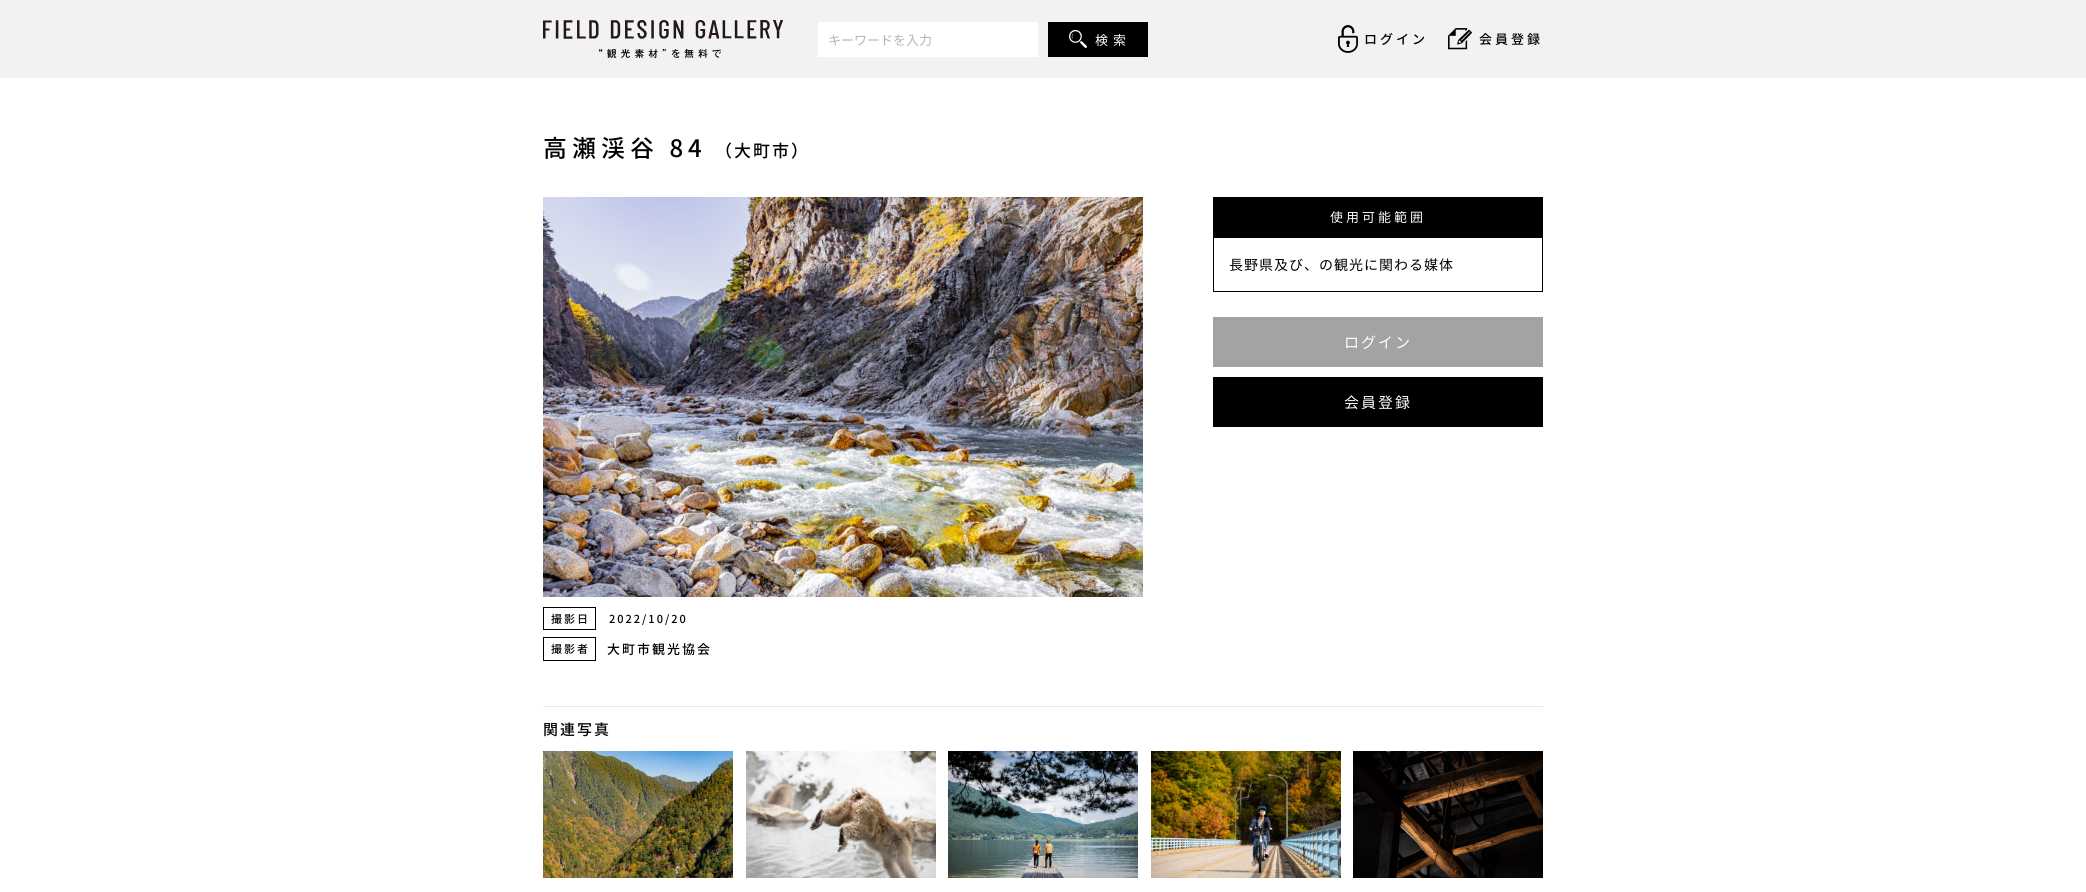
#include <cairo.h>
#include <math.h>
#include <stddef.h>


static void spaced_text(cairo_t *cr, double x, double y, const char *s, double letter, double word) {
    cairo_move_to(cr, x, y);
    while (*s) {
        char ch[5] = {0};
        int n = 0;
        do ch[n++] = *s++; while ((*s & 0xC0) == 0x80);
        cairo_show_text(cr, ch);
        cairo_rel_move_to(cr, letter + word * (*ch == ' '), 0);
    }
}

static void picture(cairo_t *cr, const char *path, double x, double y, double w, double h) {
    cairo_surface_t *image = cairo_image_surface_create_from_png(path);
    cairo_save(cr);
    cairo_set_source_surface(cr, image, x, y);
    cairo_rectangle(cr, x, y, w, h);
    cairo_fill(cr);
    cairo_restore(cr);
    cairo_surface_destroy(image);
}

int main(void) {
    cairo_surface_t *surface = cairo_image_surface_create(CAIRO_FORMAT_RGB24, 2086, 892);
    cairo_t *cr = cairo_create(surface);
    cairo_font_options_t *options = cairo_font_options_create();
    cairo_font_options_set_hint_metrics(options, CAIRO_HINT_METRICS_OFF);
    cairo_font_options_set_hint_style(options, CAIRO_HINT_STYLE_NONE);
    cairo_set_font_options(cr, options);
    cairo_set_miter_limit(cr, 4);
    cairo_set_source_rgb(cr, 1, 1, 1);
    cairo_paint(cr);
    cairo_set_source_rgb(cr, 0.949, 0.949, 0.949);
    cairo_rectangle(cr, 0, 0, 2086, 78);
    cairo_fill(cr);
    picture(cr, "img1.png", 543, 20, 240, 38);
    cairo_set_source_rgb(cr, 1, 1, 1);
    cairo_rectangle(cr, 818, 22, 220, 35);
    cairo_fill(cr);
    cairo_select_font_face(cr, "Noto Sans JP", CAIRO_FONT_SLANT_NORMAL, CAIRO_FONT_WEIGHT_NORMAL);
    cairo_set_font_size(cr, 13);
    cairo_set_source_rgb(cr, 0.702, 0.702, 0.702);
    cairo_move_to(cr, 828, 45);
    cairo_show_text(cr, "キーワードを入力");
    cairo_set_source_rgb(cr, 0, 0, 0);
    cairo_rectangle(cr, 1048, 22, 100, 35);
    cairo_fill(cr);
    picture(cr, "img2.png", 1069, 30, 18, 18);
    cairo_set_source_rgb(cr, 1, 1, 1);
    spaced_text(cr, 1095, 45, "検 索", 1, 0);
    picture(cr, "img3.png", 1338, 25, 20, 28);
    cairo_select_font_face(cr, "Noto Sans JP Medium", CAIRO_FONT_SLANT_NORMAL, CAIRO_FONT_WEIGHT_NORMAL);
    cairo_set_source_rgb(cr, 0, 0, 0);
    spaced_text(cr, 1364, 44, "ログイン", 3, 0);
    picture(cr, "img4.png", 1448, 28, 24, 22);
    spaced_text(cr, 1479, 44, "会員登録", 3, 0);
    cairo_set_font_size(cr, 24);
    spaced_text(cr, 543, 157, "高瀬渓谷 84", 5, 0);
    cairo_set_font_size(cr, 17);
    spaced_text(cr, 715, 157, "（大町市）", 2, 0);
    cairo_set_source_rgb(cr, 0.902, 0.902, 0.902);
    cairo_rectangle(cr, 543, 706, 1000, 1);
    cairo_fill(cr);
    cairo_set_source_rgb(cr, 0, 0, 0);
    cairo_rectangle(cr, 1213, 197, 330, 40);
    cairo_fill(cr);
    cairo_select_font_face(cr, "Noto Sans JP", CAIRO_FONT_SLANT_NORMAL, CAIRO_FONT_WEIGHT_NORMAL);
    cairo_set_font_size(cr, 13);
    cairo_set_source_rgb(cr, 1, 1, 1);
    spaced_text(cr, 1330, 222, "使用可能範囲", 3, 0);
    cairo_rectangle(cr, 1213.5, 237.5, 329, 54);
    cairo_set_source_rgb(cr, 0, 0, 0);
    cairo_set_line_width(cr, 1);
    cairo_stroke(cr);
    cairo_set_font_size(cr, 14);
    spaced_text(cr, 1229, 270, "長野県及び、の観光に関わる媒体", 1, 0);
    cairo_set_source_rgb(cr, 0.639, 0.639, 0.639);
    cairo_rectangle(cr, 1213, 317, 330, 50);
    cairo_fill(cr);
    cairo_set_font_size(cr, 15);
    cairo_set_source_rgb(cr, 1, 1, 1);
    spaced_text(cr, 1344, 348, "ログイン", 2, 0);
    cairo_set_source_rgb(cr, 0, 0, 0);
    cairo_rectangle(cr, 1213, 377, 330, 50);
    cairo_fill(cr);
    cairo_set_source_rgb(cr, 1, 1, 1);
    spaced_text(cr, 1344, 408, "会員登録", 2, 0);
    picture(cr, "img5.png", 543, 197, 600, 400);
    cairo_rectangle(cr, 543.5, 607.5, 52, 22);
    cairo_set_source_rgb(cr, 0, 0, 0);
    cairo_stroke(cr);
    cairo_select_font_face(cr, "Noto Sans JP Medium", CAIRO_FONT_SLANT_NORMAL, CAIRO_FONT_WEIGHT_NORMAL);
    cairo_set_font_size(cr, 11);
    spaced_text(cr, 551, 623, "撮影日", 2, 0);
    spaced_text(cr, 609, 623, "2022/10/20", 2, 0);
    cairo_rectangle(cr, 543.5, 637.5, 52, 23);
    cairo_stroke(cr);
    spaced_text(cr, 551, 653, "撮影者", 2, 0);
    cairo_set_font_size(cr, 13);
    spaced_text(cr, 607, 654, "大町市観光協会", 2, 0);
    cairo_set_font_size(cr, 15);
    spaced_text(cr, 543, 735, "関連写真", 2, 0);
    picture(cr, "img6.png", 543, 751, 190, 127);
    picture(cr, "img7.png", 746, 751, 190, 127);
    picture(cr, "img8.png", 948, 751, 190, 127);
    picture(cr, "img9.png", 1151, 751, 190, 127);
    picture(cr, "img10.png", 1353, 751, 190, 127);
    cairo_surface_write_to_png(surface, "page.png");
    cairo_font_options_destroy(options);
    cairo_destroy(cr);
    cairo_surface_destroy(surface);
    return 0;
}
